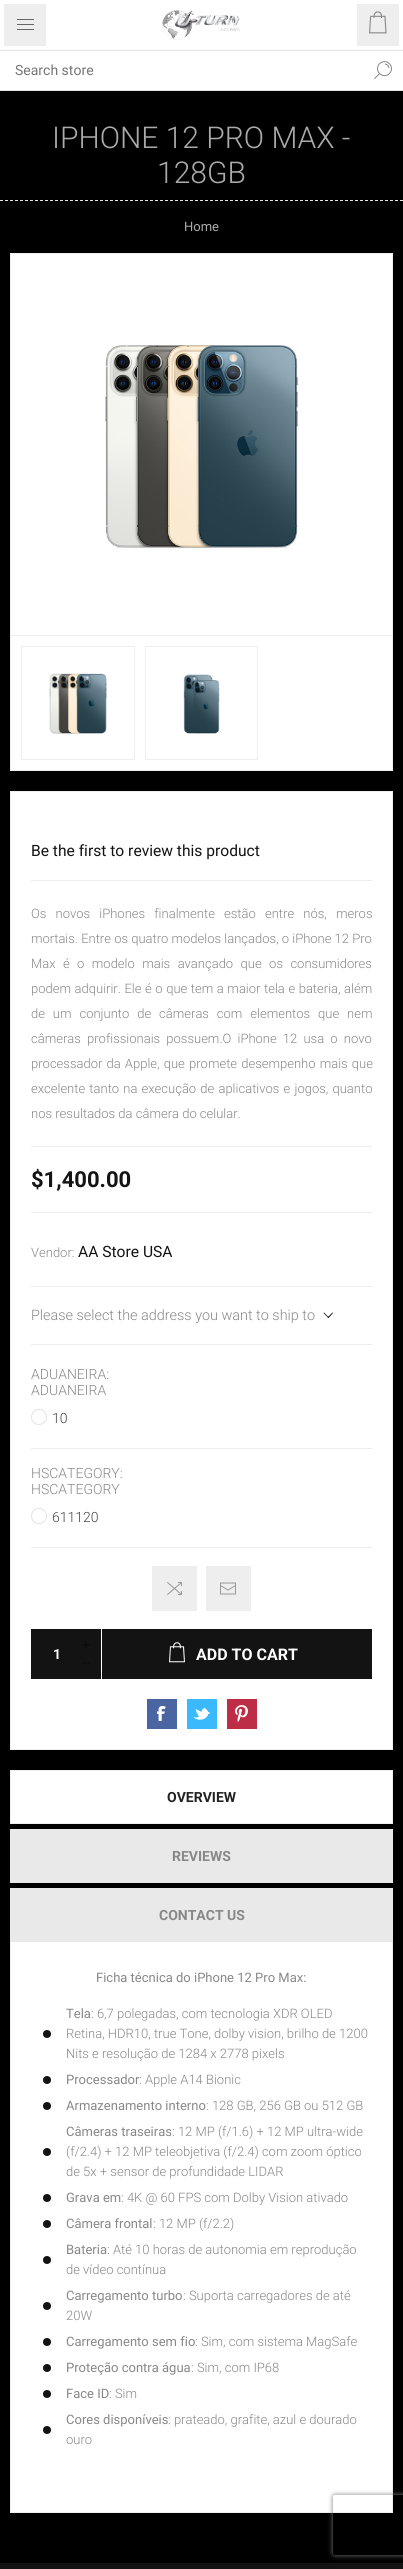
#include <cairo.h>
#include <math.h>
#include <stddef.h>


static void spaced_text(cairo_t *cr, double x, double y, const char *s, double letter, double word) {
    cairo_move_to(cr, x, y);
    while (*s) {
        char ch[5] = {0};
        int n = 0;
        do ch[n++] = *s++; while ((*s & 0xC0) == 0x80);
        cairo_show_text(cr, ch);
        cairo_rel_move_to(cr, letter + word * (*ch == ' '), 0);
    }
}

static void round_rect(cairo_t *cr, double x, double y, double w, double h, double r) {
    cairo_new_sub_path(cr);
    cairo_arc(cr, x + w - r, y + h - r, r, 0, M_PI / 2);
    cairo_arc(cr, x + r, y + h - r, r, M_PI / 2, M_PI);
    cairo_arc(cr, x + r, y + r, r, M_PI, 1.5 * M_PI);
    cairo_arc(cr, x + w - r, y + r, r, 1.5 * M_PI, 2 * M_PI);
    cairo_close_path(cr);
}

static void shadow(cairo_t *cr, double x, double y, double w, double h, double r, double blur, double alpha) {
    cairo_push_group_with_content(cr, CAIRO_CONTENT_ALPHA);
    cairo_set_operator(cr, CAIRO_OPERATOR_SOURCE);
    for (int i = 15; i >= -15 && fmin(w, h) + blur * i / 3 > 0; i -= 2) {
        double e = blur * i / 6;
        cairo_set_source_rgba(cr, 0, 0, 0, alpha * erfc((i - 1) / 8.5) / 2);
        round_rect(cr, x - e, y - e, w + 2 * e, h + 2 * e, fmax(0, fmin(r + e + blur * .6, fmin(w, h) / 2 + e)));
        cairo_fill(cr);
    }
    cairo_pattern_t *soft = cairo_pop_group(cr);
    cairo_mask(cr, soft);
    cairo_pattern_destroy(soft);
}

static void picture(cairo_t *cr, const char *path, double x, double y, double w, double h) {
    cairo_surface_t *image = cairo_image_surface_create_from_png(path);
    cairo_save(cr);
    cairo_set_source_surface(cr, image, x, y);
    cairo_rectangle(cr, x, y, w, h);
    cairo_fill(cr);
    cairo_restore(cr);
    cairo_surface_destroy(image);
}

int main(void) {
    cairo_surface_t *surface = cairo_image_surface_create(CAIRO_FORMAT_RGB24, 403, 2569);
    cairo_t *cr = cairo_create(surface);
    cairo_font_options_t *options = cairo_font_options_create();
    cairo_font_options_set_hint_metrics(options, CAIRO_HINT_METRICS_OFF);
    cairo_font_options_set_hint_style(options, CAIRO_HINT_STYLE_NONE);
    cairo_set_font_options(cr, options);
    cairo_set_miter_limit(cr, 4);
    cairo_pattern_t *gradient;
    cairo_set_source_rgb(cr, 1, 1, 1);
    cairo_paint(cr);
    gradient = cairo_pattern_create_radial(81, 0, 0, 81, 0, 81);
    cairo_pattern_add_color_stop_rgba(gradient, 0, 0.098, 0.098, 0.129, 1);
    cairo_pattern_add_color_stop_rgba(gradient, 1, 0, 0, 0, 1);
    cairo_set_source(cr, gradient);
    cairo_pattern_destroy(gradient);
    cairo_rectangle(cr, 0, 91, 403, 2472);
    cairo_fill(cr);
    cairo_set_source_rgb(cr, 0.933, 0.933, 0.933);
    cairo_rectangle(cr, 4, 4, 42, 42);
    cairo_fill(cr);
    cairo_set_source_rgb(cr, 0.4, 0.4, 0.4);
    cairo_rectangle(cr, 17, 19, 17, 1);
    cairo_fill(cr);
    cairo_rectangle(cr, 17, 24, 17, 1);
    cairo_fill(cr);
    cairo_rectangle(cr, 17, 29, 17, 1);
    cairo_fill(cr);
    cairo_set_source_rgb(cr, 0.933, 0.933, 0.933);
    cairo_rectangle(cr, 357, 4, 42, 42);
    cairo_fill(cr);
    picture(cr, "img1.png", 369, 11, 18, 23);
    cairo_set_source_rgb(cr, 0.89, 0.89, 0.89);
    cairo_rectangle(cr, 0, 50, 403, 1);
    cairo_fill(cr);
    picture(cr, "img2.png", 162, 10, 78, 30);
    cairo_rectangle(cr, 0, 90, 403, 1);
    cairo_fill(cr);
    cairo_select_font_face(cr, "Roboto", CAIRO_FONT_SLANT_NORMAL, CAIRO_FONT_WEIGHT_NORMAL);
    cairo_set_font_size(cr, 14);
    cairo_set_source_rgb(cr, 0.459, 0.459, 0.459);
    cairo_move_to(cr, 15, 75);
    cairo_show_text(cr, "Search store");
    picture(cr, "img3.png", 374, 61, 18, 18);
    cairo_new_path(cr);
    cairo_move_to(cr, 0, 200.5);
    cairo_line_to(cr, 403, 200.5);
    cairo_set_source_rgb(cr, 0.902, 0.902, 0.902);
    cairo_set_line_width(cr, 1);
    cairo_set_dash(cr, (double[]){3, 2}, 2, 0);
    cairo_stroke(cr);
    cairo_select_font_face(cr, "Roboto Light", CAIRO_FONT_SLANT_NORMAL, CAIRO_FONT_WEIGHT_NORMAL);
    cairo_set_font_size(cr, 30);
    cairo_set_source_rgb(cr, 0.667, 0.667, 0.667);
    cairo_move_to(cr, 52, 148);
    cairo_show_text(cr, "IPHONE 12 PRO MAX -");
    cairo_move_to(cr, 157, 183);
    cairo_show_text(cr, "128GB");
    cairo_select_font_face(cr, "Roboto", CAIRO_FONT_SLANT_NORMAL, CAIRO_FONT_WEIGHT_NORMAL);
    cairo_set_font_size(cr, 13);
    cairo_move_to(cr, 184, 231);
    cairo_show_text(cr, "Home");
    cairo_set_source_rgb(cr, 1, 1, 1);
    cairo_rectangle(cr, 10.5, 253.5, 382, 517);
    cairo_fill_preserve(cr);
    cairo_set_source_rgb(cr, 0.933, 0.933, 0.933);
    cairo_set_dash(cr, NULL, 0, 0);
    cairo_stroke(cr);
    cairo_rectangle(cr, 11, 635, 381, 1);
    cairo_fill(cr);
    picture(cr, "img4.png", 105, 345, 194, 205);
    cairo_rectangle(cr, 21.5, 646.5, 113, 113);
    cairo_stroke(cr);
    picture(cr, "img5.png", 49, 673, 58, 61);
    cairo_rectangle(cr, 145.5, 646.5, 112, 113);
    cairo_stroke(cr);
    picture(cr, "img6.png", 183, 674, 37, 60);
    cairo_set_source_rgb(cr, 1, 1, 1);
    cairo_rectangle(cr, 10.5, 791.5, 382, 958);
    cairo_fill_preserve(cr);
    cairo_set_source_rgb(cr, 0.933, 0.933, 0.933);
    cairo_stroke(cr);
    cairo_rectangle(cr, 31, 880, 341, 1);
    cairo_fill(cr);
    cairo_set_font_size(cr, 15.6);
    cairo_set_source_rgb(cr, 0.078, 0.078, 0.078);
    cairo_move_to(cr, 31, 856);
    cairo_show_text(cr, "Be the first to review this product");
    cairo_set_source_rgb(cr, 0.933, 0.933, 0.933);
    cairo_rectangle(cr, 31, 1146, 341, 1);
    cairo_fill(cr);
    cairo_select_font_face(cr, "Roboto Light", CAIRO_FONT_SLANT_NORMAL, CAIRO_FONT_WEIGHT_NORMAL);
    cairo_set_font_size(cr, 13);
    cairo_set_source_rgb(cr, 0.533, 0.533, 0.533);
    spaced_text(cr, 31, 918, "Os novos iPhones finalmente estão entre nós, meros", 0, 6);
    cairo_move_to(cr, 31, 943);
    cairo_show_text(cr, "mortais. Entre os quatro modelos lançados, o iPhone 12 Pro");
    spaced_text(cr, 31, 968, "Max é o modelo mais avançado que os consumidores", 0, 4.25);
    spaced_text(cr, 31, 993, "podem adquirir. Ele é o que tem a maior tela e bateria, além", 0, 0.4);
    spaced_text(cr, 31, 1018, "de um conjunto de câmeras com elementos que nem", 0, 4.75);
    spaced_text(cr, 31, 1043, "câmeras profissionais possuem.O iPhone 12 usa o novo", 0, 3);
    spaced_text(cr, 31, 1068, "processador da Apple, que promete desempenho mais que", 0, 1);
    spaced_text(cr, 31, 1093, "excelente tanto na execução de aplicativos e jogos, quanto", 0, 1);
    cairo_move_to(cr, 31, 1118);
    cairo_show_text(cr, "nos resultados da câmera do celular.");
    cairo_set_source_rgb(cr, 0.933, 0.933, 0.933);
    cairo_rectangle(cr, 31, 1212, 341, 1);
    cairo_fill(cr);
    cairo_select_font_face(cr, "Roboto", CAIRO_FONT_SLANT_NORMAL, CAIRO_FONT_WEIGHT_BOLD);
    cairo_set_font_size(cr, 22);
    cairo_set_source_rgb(cr, 0.078, 0.078, 0.078);
    cairo_move_to(cr, 31, 1187);
    cairo_show_text(cr, "$1,400.00");
    cairo_set_source_rgb(cr, 0.933, 0.933, 0.933);
    cairo_rectangle(cr, 31, 1286, 341, 1);
    cairo_fill(cr);
    cairo_select_font_face(cr, "Roboto Light", CAIRO_FONT_SLANT_NORMAL, CAIRO_FONT_WEIGHT_NORMAL);
    cairo_set_font_size(cr, 13);
    cairo_set_source_rgb(cr, 0.533, 0.533, 0.533);
    cairo_move_to(cr, 31, 1257);
    cairo_show_text(cr, "Vendor:");
    cairo_select_font_face(cr, "Roboto", CAIRO_FONT_SLANT_NORMAL, CAIRO_FONT_WEIGHT_NORMAL);
    cairo_set_font_size(cr, 15.6);
    cairo_set_source_rgb(cr, 0.078, 0.078, 0.078);
    cairo_move_to(cr, 78, 1257);
    cairo_show_text(cr, "AA Store USA");
    cairo_set_source_rgb(cr, 0.933, 0.933, 0.933);
    cairo_rectangle(cr, 31, 1344, 341, 1);
    cairo_fill(cr);
    cairo_select_font_face(cr, "Roboto Light", CAIRO_FONT_SLANT_NORMAL, CAIRO_FONT_WEIGHT_NORMAL);
    cairo_set_font_size(cr, 14.4);
    cairo_set_source_rgb(cr, 0.533, 0.533, 0.533);
    cairo_move_to(cr, 31, 1320);
    cairo_show_text(cr, "Please select the address you want to ship to");
    cairo_set_source_rgb(cr, 0, 0, 0);
    cairo_new_path(cr);
    cairo_move_to(cr, 332.5, 1312.5);
    cairo_line_to(cr, 333, 1313);
    cairo_line_to(cr, 328.5, 1318);
    cairo_line_to(cr, 327.5, 1317.5);
    cairo_close_path(cr);
    cairo_fill(cr);
    cairo_new_path(cr);
    cairo_move_to(cr, 324, 1312.5);
    cairo_line_to(cr, 329, 1317.5);
    cairo_line_to(cr, 328.5, 1318);
    cairo_line_to(cr, 323.5, 1313);
    cairo_close_path(cr);
    cairo_fill(cr);
    cairo_set_source_rgb(cr, 0.933, 0.933, 0.933);
    cairo_rectangle(cr, 31, 1448, 341, 1);
    cairo_fill(cr);
    cairo_set_font_size(cr, 14);
    cairo_set_source_rgb(cr, 0.533, 0.533, 0.533);
    cairo_move_to(cr, 31, 1379);
    cairo_show_text(cr, "ADUANEIRA:");
    cairo_move_to(cr, 31, 1395);
    cairo_show_text(cr, "ADUANEIRA");
    cairo_new_path(cr);
    cairo_arc(cr, 39, 1417, 7.5, 0, 2 * M_PI);
    cairo_set_source_rgb(cr, 0.89, 0.89, 0.89);
    cairo_stroke(cr);
    cairo_set_source_rgb(cr, 0.267, 0.267, 0.267);
    cairo_move_to(cr, 52, 1423);
    cairo_show_text(cr, "10");
    cairo_set_source_rgb(cr, 0.933, 0.933, 0.933);
    cairo_rectangle(cr, 31, 1547, 341, 1);
    cairo_fill(cr);
    cairo_set_source_rgb(cr, 0.533, 0.533, 0.533);
    cairo_move_to(cr, 31, 1478);
    cairo_show_text(cr, "HSCATEGORY:");
    cairo_move_to(cr, 31, 1494);
    cairo_show_text(cr, "HSCATEGORY");
    cairo_new_path(cr);
    cairo_arc(cr, 39, 1516, 7.5, 0, 2 * M_PI);
    cairo_set_source_rgb(cr, 0.89, 0.89, 0.89);
    cairo_stroke(cr);
    cairo_set_source_rgb(cr, 0.267, 0.267, 0.267);
    cairo_move_to(cr, 52, 1522);
    cairo_show_text(cr, "611120");
    cairo_set_source_rgb(cr, 0.933, 0.933, 0.933);
    cairo_rectangle(cr, 152, 1566, 45, 45);
    cairo_fill(cr);
    picture(cr, "img7.png", 167, 1582, 15, 13);
    cairo_rectangle(cr, 206, 1566, 45, 45);
    cairo_fill(cr);
    picture(cr, "img8.png", 220, 1582, 16, 13);
    cairo_set_source_rgb(cr, 0.078, 0.078, 0.078);
    cairo_rectangle(cr, 31, 1629, 40, 50);
    cairo_fill(cr);
    cairo_select_font_face(cr, "Roboto", CAIRO_FONT_SLANT_NORMAL, CAIRO_FONT_WEIGHT_BOLD);
    cairo_set_source_rgb(cr, 1, 1, 1);
    cairo_move_to(cr, 53, 1659);
    cairo_show_text(cr, "1");
    cairo_set_source_rgb(cr, 0.078, 0.078, 0.078);
    cairo_rectangle(cr, 71, 1629, 30, 50);
    cairo_fill(cr);
    cairo_set_source_rgb(cr, 0.055, 0.055, 0.055);
    cairo_rectangle(cr, 85, 1641, 2, 8);
    cairo_fill(cr);
    cairo_rectangle(cr, 82, 1644, 8, 2);
    cairo_fill(cr);
    cairo_set_source_rgb(cr, 0.039, 0.039, 0.039);
    cairo_rectangle(cr, 85, 1644, 2, 2);
    cairo_fill(cr);
    cairo_set_source_rgb(cr, 0.055, 0.055, 0.055);
    cairo_rectangle(cr, 82, 1662, 8, 2);
    cairo_fill(cr);
    cairo_set_source_rgb(cr, 0.078, 0.078, 0.078);
    cairo_rectangle(cr, 102, 1629, 270, 50);
    cairo_fill(cr);
    picture(cr, "img9.png", 169, 1642, 16, 21);
    cairo_set_font_size(cr, 16);
    cairo_set_source_rgb(cr, 1, 1, 1);
    cairo_move_to(cr, 196, 1660);
    cairo_show_text(cr, "ADD TO CART");
    cairo_set_source_rgb(cr, 0.29, 0.396, 0.635);
    cairo_rectangle(cr, 147, 1699, 30, 30);
    cairo_fill(cr);
    picture(cr, "img10.png", 157, 1705, 9, 16);
    cairo_set_source_rgb(cr, 0.227, 0.729, 0.992);
    cairo_rectangle(cr, 187, 1699, 30, 30);
    cairo_fill(cr);
    picture(cr, "img11.png", 193, 1707, 17, 13);
    cairo_set_source_rgb(cr, 0.741, 0.176, 0.271);
    cairo_rectangle(cr, 227, 1699, 30, 30);
    cairo_fill(cr);
    picture(cr, "img12.png", 235, 1705, 13, 17);
    cairo_set_source_rgb(cr, 1, 1, 1);
    cairo_rectangle(cr, 10.5, 1770.5, 382, 53);
    cairo_fill_preserve(cr);
    cairo_set_source_rgb(cr, 0.933, 0.933, 0.933);
    cairo_stroke(cr);
    cairo_set_font_size(cr, 14);
    cairo_set_source_rgb(cr, 0.133, 0.133, 0.133);
    cairo_move_to(cr, 167, 1802);
    cairo_show_text(cr, "OVERVIEW");
    cairo_set_source_rgb(cr, 0.914, 0.914, 0.914);
    cairo_rectangle(cr, 10, 1829, 383, 54);
    cairo_fill(cr);
    cairo_set_source_rgb(cr, 0.533, 0.533, 0.533);
    cairo_move_to(cr, 172, 1861);
    cairo_show_text(cr, "REVIEWS");
    cairo_set_source_rgb(cr, 1, 1, 1);
    cairo_rectangle(cr, 10.5, 1941.5, 382, 571);
    cairo_fill_preserve(cr);
    cairo_set_source_rgb(cr, 0.933, 0.933, 0.933);
    cairo_stroke(cr);
    cairo_set_source_rgb(cr, 0.914, 0.914, 0.914);
    cairo_rectangle(cr, 10, 1888, 383, 54);
    cairo_fill(cr);
    cairo_set_source_rgb(cr, 0.533, 0.533, 0.533);
    cairo_move_to(cr, 159, 1920);
    cairo_show_text(cr, "CONTACT US");
    cairo_select_font_face(cr, "Roboto", CAIRO_FONT_SLANT_NORMAL, CAIRO_FONT_WEIGHT_NORMAL);
    cairo_set_font_size(cr, 13);
    cairo_move_to(cr, 96, 1982);
    cairo_show_text(cr, "Ficha técnica do iPhone 12 Pro Max:");
    cairo_move_to(cr, 66, 2018);
    cairo_show_text(cr, "Tela");
    cairo_select_font_face(cr, "Roboto Light", CAIRO_FONT_SLANT_NORMAL, CAIRO_FONT_WEIGHT_NORMAL);
    cairo_move_to(cr, 91, 2018);
    cairo_show_text(cr, ": 6,7 polegadas, com tecnologia XDR OLED");
    cairo_set_source_rgb(cr, 0.078, 0.078, 0.078);
    cairo_new_path(cr);
    cairo_arc(cr, 47, 2034, 4, 0, 2 * M_PI);
    cairo_fill(cr);
    cairo_set_source_rgb(cr, 0.533, 0.533, 0.533);
    cairo_move_to(cr, 66, 2038);
    cairo_show_text(cr, "Retina, HDR10, true Tone, dolby vision, brilho de 1200");
    cairo_move_to(cr, 66, 2058);
    cairo_show_text(cr, "Nits e resolução de 1284 x 2778 pixels");
    cairo_set_source_rgb(cr, 0.078, 0.078, 0.078);
    cairo_new_path(cr);
    cairo_arc(cr, 47, 2080, 4, 0, 2 * M_PI);
    cairo_fill(cr);
    cairo_select_font_face(cr, "Roboto", CAIRO_FONT_SLANT_NORMAL, CAIRO_FONT_WEIGHT_NORMAL);
    cairo_set_source_rgb(cr, 0.533, 0.533, 0.533);
    cairo_move_to(cr, 66, 2084);
    cairo_show_text(cr, "Processador");
    cairo_select_font_face(cr, "Roboto Light", CAIRO_FONT_SLANT_NORMAL, CAIRO_FONT_WEIGHT_NORMAL);
    cairo_move_to(cr, 139, 2084);
    cairo_show_text(cr, ": Apple A14 Bionic");
    cairo_set_source_rgb(cr, 0.078, 0.078, 0.078);
    cairo_new_path(cr);
    cairo_arc(cr, 47, 2106, 4, 0, 2 * M_PI);
    cairo_fill(cr);
    cairo_select_font_face(cr, "Roboto", CAIRO_FONT_SLANT_NORMAL, CAIRO_FONT_WEIGHT_NORMAL);
    cairo_set_source_rgb(cr, 0.533, 0.533, 0.533);
    cairo_move_to(cr, 66, 2110);
    cairo_show_text(cr, "Armazenamento interno");
    cairo_select_font_face(cr, "Roboto Light", CAIRO_FONT_SLANT_NORMAL, CAIRO_FONT_WEIGHT_NORMAL);
    cairo_move_to(cr, 206, 2110);
    cairo_show_text(cr, ": 128 GB, 256 GB ou 512 GB");
    cairo_select_font_face(cr, "Roboto", CAIRO_FONT_SLANT_NORMAL, CAIRO_FONT_WEIGHT_NORMAL);
    cairo_move_to(cr, 66, 2136);
    cairo_show_text(cr, "Câmeras traseiras");
    cairo_select_font_face(cr, "Roboto Light", CAIRO_FONT_SLANT_NORMAL, CAIRO_FONT_WEIGHT_NORMAL);
    cairo_move_to(cr, 172, 2136);
    cairo_show_text(cr, ": 12 MP (f/1.6) + 12 MP ultra-wide");
    cairo_set_source_rgb(cr, 0.078, 0.078, 0.078);
    cairo_new_path(cr);
    cairo_arc(cr, 47, 2152, 4, 0, 2 * M_PI);
    cairo_fill(cr);
    cairo_set_source_rgb(cr, 0.533, 0.533, 0.533);
    cairo_move_to(cr, 66, 2156);
    cairo_show_text(cr, "(f/2.4) + 12 MP teleobjetiva (f/2.4) com zoom óptico");
    cairo_move_to(cr, 66, 2176);
    cairo_show_text(cr, "de 5x + sensor de profundidade LIDAR");
    cairo_set_source_rgb(cr, 0.078, 0.078, 0.078);
    cairo_new_path(cr);
    cairo_arc(cr, 47, 2198, 4, 0, 2 * M_PI);
    cairo_fill(cr);
    cairo_select_font_face(cr, "Roboto", CAIRO_FONT_SLANT_NORMAL, CAIRO_FONT_WEIGHT_NORMAL);
    cairo_set_source_rgb(cr, 0.533, 0.533, 0.533);
    cairo_move_to(cr, 66, 2202);
    cairo_show_text(cr, "Grava em");
    cairo_select_font_face(cr, "Roboto Light", CAIRO_FONT_SLANT_NORMAL, CAIRO_FONT_WEIGHT_NORMAL);
    cairo_move_to(cr, 121, 2202);
    cairo_show_text(cr, ": 4K @ 60 FPS com Dolby Vision ativado");
    cairo_set_source_rgb(cr, 0.078, 0.078, 0.078);
    cairo_new_path(cr);
    cairo_arc(cr, 47, 2224, 4, 0, 2 * M_PI);
    cairo_fill(cr);
    cairo_select_font_face(cr, "Roboto", CAIRO_FONT_SLANT_NORMAL, CAIRO_FONT_WEIGHT_NORMAL);
    cairo_set_source_rgb(cr, 0.533, 0.533, 0.533);
    cairo_move_to(cr, 66, 2228);
    cairo_show_text(cr, "Câmera frontal");
    cairo_select_font_face(cr, "Roboto Light", CAIRO_FONT_SLANT_NORMAL, CAIRO_FONT_WEIGHT_NORMAL);
    cairo_move_to(cr, 153, 2228);
    cairo_show_text(cr, ": 12 MP (f/2.2)");
    cairo_select_font_face(cr, "Roboto", CAIRO_FONT_SLANT_NORMAL, CAIRO_FONT_WEIGHT_NORMAL);
    cairo_move_to(cr, 66, 2254);
    cairo_show_text(cr, "Bateria");
    cairo_select_font_face(cr, "Roboto Light", CAIRO_FONT_SLANT_NORMAL, CAIRO_FONT_WEIGHT_NORMAL);
    cairo_move_to(cr, 107, 2254);
    cairo_show_text(cr, ": Até 10 horas de autonomia em reprodução");
    cairo_set_source_rgb(cr, 0.078, 0.078, 0.078);
    cairo_new_path(cr);
    cairo_arc(cr, 47, 2260, 4, 0, 2 * M_PI);
    cairo_fill(cr);
    cairo_set_source_rgb(cr, 0.533, 0.533, 0.533);
    cairo_move_to(cr, 66, 2274);
    cairo_show_text(cr, "de vídeo contínua");
    cairo_select_font_face(cr, "Roboto", CAIRO_FONT_SLANT_NORMAL, CAIRO_FONT_WEIGHT_NORMAL);
    cairo_move_to(cr, 66, 2300);
    cairo_show_text(cr, "Carregamento turbo");
    cairo_select_font_face(cr, "Roboto Light", CAIRO_FONT_SLANT_NORMAL, CAIRO_FONT_WEIGHT_NORMAL);
    cairo_move_to(cr, 183, 2300);
    cairo_show_text(cr, ": Suporta carregadores de até");
    cairo_set_source_rgb(cr, 0.078, 0.078, 0.078);
    cairo_new_path(cr);
    cairo_arc(cr, 47, 2306, 4, 0, 2 * M_PI);
    cairo_fill(cr);
    cairo_set_source_rgb(cr, 0.533, 0.533, 0.533);
    cairo_move_to(cr, 66, 2320);
    cairo_show_text(cr, "20W");
    cairo_set_source_rgb(cr, 0.078, 0.078, 0.078);
    cairo_new_path(cr);
    cairo_arc(cr, 47, 2342, 4, 0, 2 * M_PI);
    cairo_fill(cr);
    cairo_select_font_face(cr, "Roboto", CAIRO_FONT_SLANT_NORMAL, CAIRO_FONT_WEIGHT_NORMAL);
    cairo_set_source_rgb(cr, 0.533, 0.533, 0.533);
    cairo_move_to(cr, 66, 2346);
    cairo_show_text(cr, "Carregamento sem fio");
    cairo_select_font_face(cr, "Roboto Light", CAIRO_FONT_SLANT_NORMAL, CAIRO_FONT_WEIGHT_NORMAL);
    cairo_move_to(cr, 195, 2346);
    cairo_show_text(cr, ": Sim, com sistema MagSafe");
    cairo_set_source_rgb(cr, 0.078, 0.078, 0.078);
    cairo_new_path(cr);
    cairo_arc(cr, 47, 2368, 4, 0, 2 * M_PI);
    cairo_fill(cr);
    cairo_select_font_face(cr, "Roboto", CAIRO_FONT_SLANT_NORMAL, CAIRO_FONT_WEIGHT_NORMAL);
    cairo_set_source_rgb(cr, 0.533, 0.533, 0.533);
    cairo_move_to(cr, 66, 2372);
    cairo_show_text(cr, "Proteção contra água");
    cairo_select_font_face(cr, "Roboto Light", CAIRO_FONT_SLANT_NORMAL, CAIRO_FONT_WEIGHT_NORMAL);
    cairo_move_to(cr, 191, 2372);
    cairo_show_text(cr, ": Sim, com IP68");
    cairo_set_source_rgb(cr, 0.078, 0.078, 0.078);
    cairo_new_path(cr);
    cairo_arc(cr, 47, 2394, 4, 0, 2 * M_PI);
    cairo_fill(cr);
    cairo_select_font_face(cr, "Roboto", CAIRO_FONT_SLANT_NORMAL, CAIRO_FONT_WEIGHT_NORMAL);
    cairo_set_source_rgb(cr, 0.533, 0.533, 0.533);
    cairo_move_to(cr, 66, 2398);
    cairo_show_text(cr, "Face ID");
    cairo_select_font_face(cr, "Roboto Light", CAIRO_FONT_SLANT_NORMAL, CAIRO_FONT_WEIGHT_NORMAL);
    cairo_move_to(cr, 109, 2398);
    cairo_show_text(cr, ": Sim");
    cairo_select_font_face(cr, "Roboto", CAIRO_FONT_SLANT_NORMAL, CAIRO_FONT_WEIGHT_NORMAL);
    cairo_move_to(cr, 66, 2424);
    cairo_show_text(cr, "Cores disponíveis");
    cairo_select_font_face(cr, "Roboto Light", CAIRO_FONT_SLANT_NORMAL, CAIRO_FONT_WEIGHT_NORMAL);
    cairo_move_to(cr, 168, 2424);
    cairo_show_text(cr, ": prateado, grafite, azul e dourado");
    cairo_set_source_rgb(cr, 0.078, 0.078, 0.078);
    cairo_new_path(cr);
    cairo_arc(cr, 47, 2430, 4, 0, 2 * M_PI);
    cairo_fill(cr);
    cairo_set_source_rgb(cr, 0.533, 0.533, 0.533);
    cairo_move_to(cr, 66, 2444);
    cairo_show_text(cr, "ouro");
    cairo_set_source_rgb(cr, 0.078, 0.078, 0.078);
    cairo_rectangle(cr, 0, 2563, 403, 6);
    cairo_fill(cr);
    cairo_save(cr);
    cairo_set_fill_rule(cr, CAIRO_FILL_RULE_EVEN_ODD);
    cairo_new_path(cr);
    cairo_move_to(cr, 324, 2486);
    cairo_line_to(cr, 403, 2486);
    cairo_line_to(cr, 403, 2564);
    cairo_line_to(cr, 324, 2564);
    cairo_close_path(cr);
    cairo_move_to(cr, 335, 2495);
    cairo_line_to(cr, 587, 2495);
    cairo_curve_to(cr, 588, 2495, 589, 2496, 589, 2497);
    cairo_line_to(cr, 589, 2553);
    cairo_curve_to(cr, 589, 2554, 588, 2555, 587, 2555);
    cairo_line_to(cr, 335, 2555);
    cairo_curve_to(cr, 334, 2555, 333, 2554, 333, 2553);
    cairo_line_to(cr, 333, 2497);
    cairo_curve_to(cr, 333, 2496, 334, 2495, 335, 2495);
    cairo_close_path(cr);
    cairo_clip(cr);
    cairo_set_source_rgb(cr, 0.502, 0.502, 0.502);
    shadow(cr, 333, 2495, 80, 60, 2, 2.5, 1);
    cairo_restore(cr);
    cairo_surface_write_to_png(surface, "page.png");
    cairo_font_options_destroy(options);
    cairo_destroy(cr);
    cairo_surface_destroy(surface);
    return 0;
}
